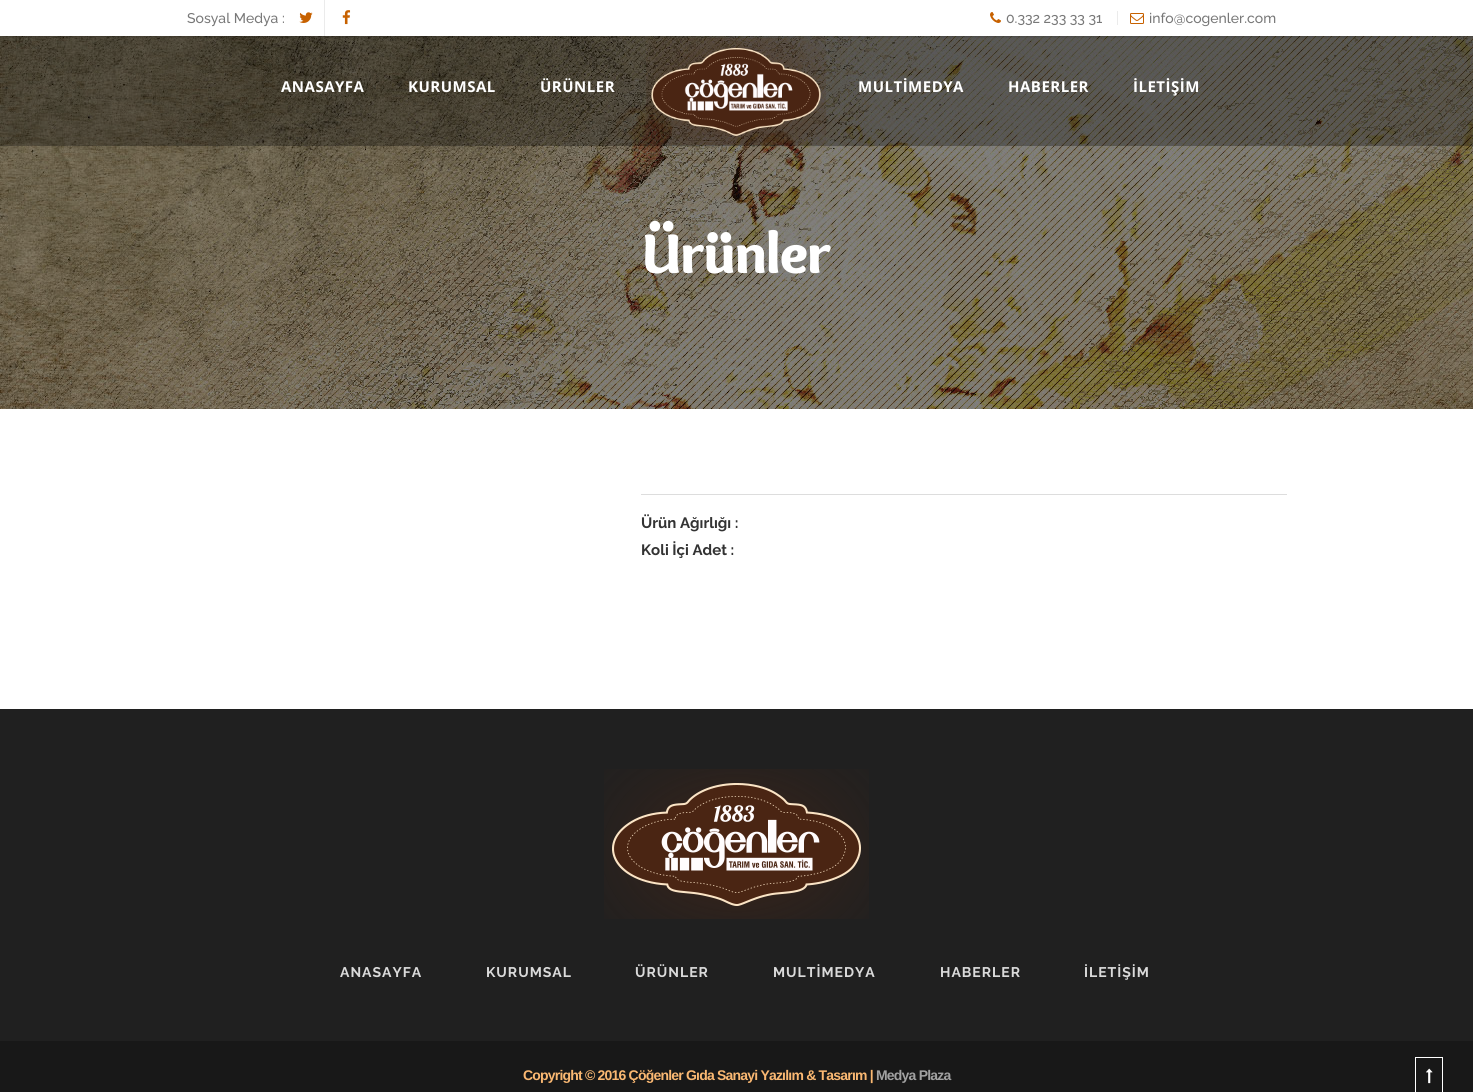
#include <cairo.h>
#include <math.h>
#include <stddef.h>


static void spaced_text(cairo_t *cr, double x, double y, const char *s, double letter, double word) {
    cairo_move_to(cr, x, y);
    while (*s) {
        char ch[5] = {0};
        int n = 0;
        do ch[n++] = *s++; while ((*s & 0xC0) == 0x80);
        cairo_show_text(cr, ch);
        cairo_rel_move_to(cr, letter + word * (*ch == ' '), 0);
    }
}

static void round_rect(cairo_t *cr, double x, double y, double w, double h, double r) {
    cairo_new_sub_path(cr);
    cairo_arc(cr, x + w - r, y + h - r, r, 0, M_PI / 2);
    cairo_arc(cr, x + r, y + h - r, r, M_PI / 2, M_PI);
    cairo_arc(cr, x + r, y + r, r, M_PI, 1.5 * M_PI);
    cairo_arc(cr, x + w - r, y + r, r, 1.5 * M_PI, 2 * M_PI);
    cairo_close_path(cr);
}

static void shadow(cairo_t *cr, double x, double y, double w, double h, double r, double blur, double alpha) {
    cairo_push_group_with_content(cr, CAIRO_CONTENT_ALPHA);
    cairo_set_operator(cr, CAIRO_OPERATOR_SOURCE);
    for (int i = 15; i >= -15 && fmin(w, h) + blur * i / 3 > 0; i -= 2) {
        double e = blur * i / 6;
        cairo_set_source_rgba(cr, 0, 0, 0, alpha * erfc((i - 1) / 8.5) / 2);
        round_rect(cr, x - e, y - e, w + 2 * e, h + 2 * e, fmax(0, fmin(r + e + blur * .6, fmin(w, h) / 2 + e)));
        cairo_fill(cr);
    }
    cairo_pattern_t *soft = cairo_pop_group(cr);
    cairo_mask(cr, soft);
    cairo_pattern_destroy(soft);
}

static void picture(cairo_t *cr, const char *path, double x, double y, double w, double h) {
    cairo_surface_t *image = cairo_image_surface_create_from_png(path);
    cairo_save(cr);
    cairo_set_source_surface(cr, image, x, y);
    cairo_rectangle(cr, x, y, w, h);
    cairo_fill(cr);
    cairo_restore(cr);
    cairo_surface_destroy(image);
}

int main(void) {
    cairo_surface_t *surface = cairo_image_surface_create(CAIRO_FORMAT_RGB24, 1473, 1092);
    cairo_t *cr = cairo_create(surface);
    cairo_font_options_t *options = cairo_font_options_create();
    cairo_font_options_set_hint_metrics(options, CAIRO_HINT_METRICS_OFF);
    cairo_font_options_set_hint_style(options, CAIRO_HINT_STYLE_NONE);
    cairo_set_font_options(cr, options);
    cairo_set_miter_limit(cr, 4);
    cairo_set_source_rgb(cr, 1, 1, 1);
    cairo_paint(cr);
    picture(cr, "img6.png", 0, 36, 1473, 373);
    cairo_set_source_rgb(cr, 0, 0, 0);
    shadow(cr, 1, 1, 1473, 36, 0, 1, 0.2);
    cairo_set_source_rgb(cr, 1, 1, 1);
    cairo_rectangle(cr, 0, 0, 1473, 36);
    cairo_fill(cr);
    cairo_select_font_face(cr, "Raleway Medium", CAIRO_FONT_SLANT_NORMAL, CAIRO_FONT_WEIGHT_NORMAL);
    cairo_set_font_size(cr, 14);
    cairo_set_source_rgb(cr, 0.471, 0.471, 0.471);
    cairo_move_to(cr, 187, 23);
    cairo_show_text(cr, "Sosyal Medya :");
    cairo_set_source_rgb(cr, 0.918, 0.918, 0.918);
    cairo_rectangle(cr, 324, 0, 1, 36);
    cairo_fill(cr);
    picture(cr, "img1.png", 299, 12, 14, 11);
    picture(cr, "img2.png", 342, 10, 9, 15);
    picture(cr, "img3.png", 990, 12, 11, 11);
    cairo_set_source_rgb(cr, 0.471, 0.471, 0.471);
    cairo_move_to(cr, 1006, 23);
    cairo_show_text(cr, "0.332 233 33 31");
    cairo_set_source_rgb(cr, 0.918, 0.918, 0.918);
    cairo_rectangle(cr, 1117, 11, 1, 14);
    cairo_fill(cr);
    picture(cr, "img4.png", 1130, 13, 14, 11);
    cairo_set_source_rgb(cr, 0.471, 0.471, 0.471);
    cairo_move_to(cr, 1149, 23);
    cairo_show_text(cr, "info@cogenler.com");
    cairo_set_source_rgba(cr, 0, 0, 0, 0.3);
    cairo_rectangle(cr, 0, 36, 1473, 110);
    cairo_fill(cr);
    cairo_select_font_face(cr, "Open Sans", CAIRO_FONT_SLANT_NORMAL, CAIRO_FONT_WEIGHT_BOLD);
    cairo_set_font_size(cr, 15);
    cairo_set_source_rgb(cr, 1, 1, 1);
    spaced_text(cr, 281, 92, "ANASAYFA", 0.5, 0);
    spaced_text(cr, 408, 92, "KURUMSAL", 0.5, 0);
    spaced_text(cr, 540, 92, "ÜRÜNLER", 0.5, 0);
    picture(cr, "img5.png", 646, 38, 180, 107);
    spaced_text(cr, 858, 92, "MULTİMEDYA", 0.5, 0);
    spaced_text(cr, 1008, 92, "HABERLER", 0.5, 0);
    spaced_text(cr, 1133, 92, "İLETİŞİM", 0.5, 0);
    cairo_select_font_face(cr, "Overlock Black", CAIRO_FONT_SLANT_NORMAL, CAIRO_FONT_WEIGHT_NORMAL);
    cairo_set_font_size(cr, 58);
    spaced_text(cr, 642, 273, "Ürünler", -0.8, 0);
    cairo_set_source_rgb(cr, 0.867, 0.867, 0.867);
    cairo_rectangle(cr, 641, 494, 646, 1);
    cairo_fill(cr);
    cairo_select_font_face(cr, "Raleway", CAIRO_FONT_SLANT_NORMAL, CAIRO_FONT_WEIGHT_BOLD);
    cairo_set_font_size(cr, 15);
    cairo_set_source_rgb(cr, 0.2, 0.2, 0.2);
    cairo_move_to(cr, 641, 528);
    cairo_show_text(cr, "Ürün Ağırlığı :");
    cairo_move_to(cr, 641, 555);
    cairo_show_text(cr, "Koli İçi Adet :");
    cairo_set_source_rgb(cr, 0.125, 0.125, 0.125);
    cairo_rectangle(cr, 0, 709, 1473, 332);
    cairo_fill(cr);
    picture(cr, "img7.png", 604, 769, 265, 150);
    cairo_set_font_size(cr, 14);
    cairo_set_source_rgb(cr, 0.855, 0.855, 0.855);
    spaced_text(cr, 340, 977, "ANASAYFA", 1, 0);
    spaced_text(cr, 486, 977, "KURUMSAL", 1, 0);
    spaced_text(cr, 635, 977, "ÜRÜNLER", 1, 0);
    spaced_text(cr, 773, 977, "MULTİMEDYA", 1, 0);
    spaced_text(cr, 940, 977, "HABERLER", 1, 0);
    spaced_text(cr, 1084, 977, "İLETİŞİM", 1, 0);
    cairo_set_source_rgb(cr, 0.094, 0.094, 0.094);
    cairo_rectangle(cr, 0, 1041, 1473, 51);
    cairo_fill(cr);
    cairo_select_font_face(cr, "Liberation Sans", CAIRO_FONT_SLANT_NORMAL, CAIRO_FONT_WEIGHT_BOLD);
    cairo_set_source_rgb(cr, 0.98, 0.722, 0.447);
    spaced_text(cr, 523, 1080, "Copyright © 2016 Çöğenler Gıda Sanayi Yazılım & Tasarım |", -0.8, 0);
    cairo_set_source_rgb(cr, 0.631, 0.631, 0.631);
    spaced_text(cr, 876, 1080, "Medya Plaza", -0.8, 0);
    cairo_rectangle(cr, 1415.5, 1057.5, 27, 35);
    cairo_set_source_rgb(cr, 1, 1, 1);
    cairo_set_line_width(cr, 1);
    cairo_stroke(cr);
    picture(cr, "img8.png", 1426, 1068, 7, 16);
    cairo_surface_write_to_png(surface, "page.png");
    cairo_font_options_destroy(options);
    cairo_destroy(cr);
    cairo_surface_destroy(surface);
    return 0;
}
